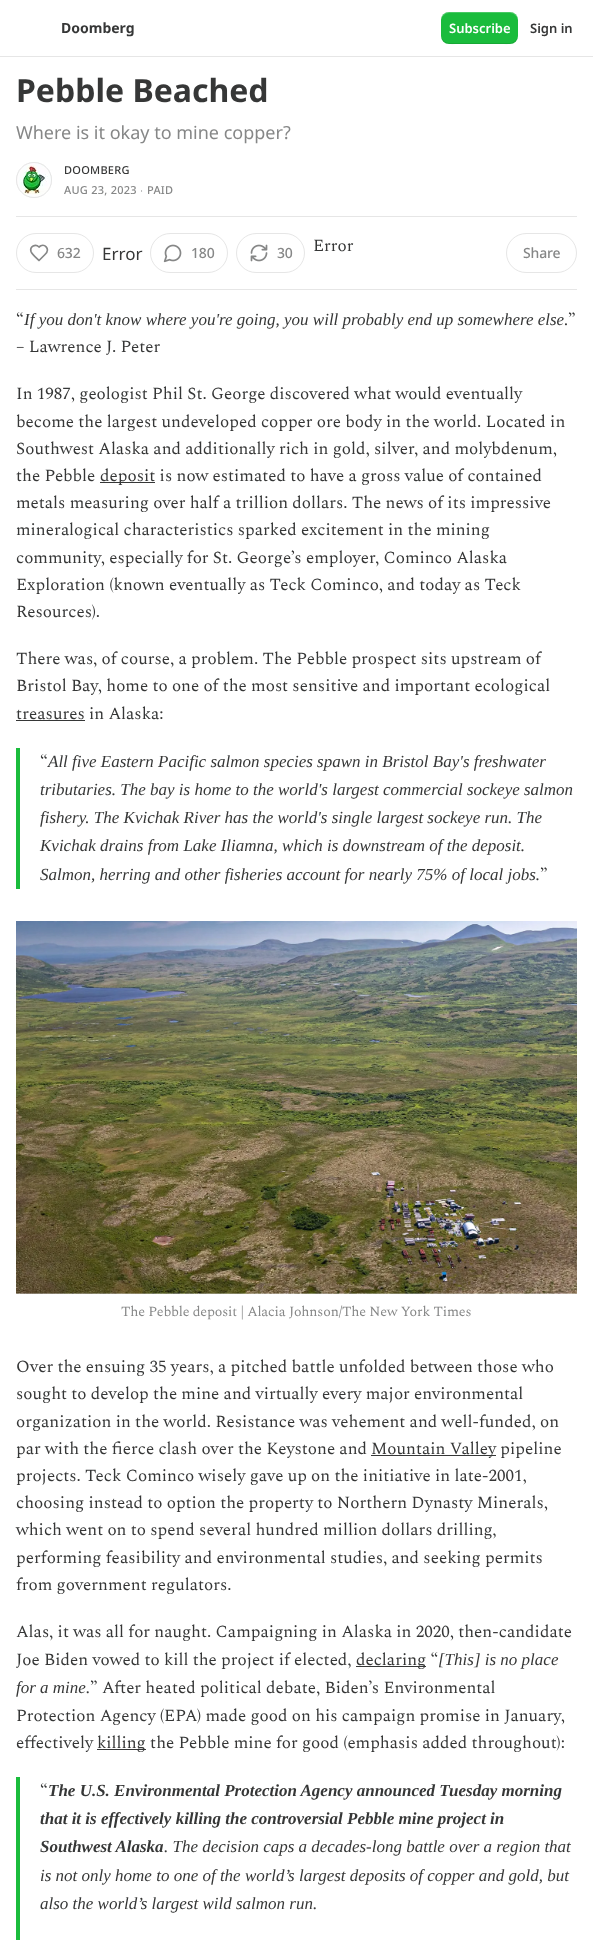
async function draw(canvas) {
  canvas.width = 593
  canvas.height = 1940
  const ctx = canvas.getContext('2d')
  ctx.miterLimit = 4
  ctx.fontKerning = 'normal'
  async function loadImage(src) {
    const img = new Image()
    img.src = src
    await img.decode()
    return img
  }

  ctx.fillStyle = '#fff'
  ctx.fillRect(0, 0, 593, 1940)
  ctx.fillStyle = '#e6e6e6'
  ctx.fillRect(0, 56, 593, 1)
  ctx.font = 'bold 14px Noto Sans'
  ctx.fillStyle = '#363737'
  ctx.fillText('Doomberg', 61, 33)
  ctx.fillStyle = '#1abc3c'
  ctx.beginPath()
  ctx.roundRect(441, 12, 77, 32, 8)
  ctx.fill()
  ctx.fillStyle = '#0000001a'
  ctx.beginPath()
  ctx.moveTo(441, 35)
  ctx.bezierCurveTo(441, 46, 451, 44, 459, 44)
  ctx.lineTo(500, 44)
  ctx.bezierCurveTo(508, 44, 518, 46, 518, 35)
  ctx.bezierCurveTo(518, 39, 514, 43, 510, 43)
  ctx.lineTo(449, 43)
  ctx.bezierCurveTo(445, 43, 441, 39, 441, 35)
  ctx.closePath()
  ctx.fill()
  ctx.fillStyle = '#ffffff33'
  ctx.beginPath()
  ctx.moveTo(449, 13)
  ctx.lineTo(510, 13)
  ctx.bezierCurveTo(514, 13, 518, 17, 518, 21)
  ctx.bezierCurveTo(518, 10, 508, 12, 500, 12)
  ctx.lineTo(459, 12)
  ctx.bezierCurveTo(451, 12, 441, 10, 441, 21)
  ctx.bezierCurveTo(441, 17, 445, 13, 449, 13)
  ctx.closePath()
  ctx.fill()
  ctx.font = '600 13px Noto Sans'
  ctx.fillStyle = '#fff'
  ctx.fillText('Subscribe', 449, 33)
  ctx.fillStyle = '#363737'
  ctx.fillText('Sign in', 530, 33)
  ctx.font = 'bold 32px Noto Sans'
  ctx.fillText('Pebble Beached', 16, 102)
  ctx.font = '18px Noto Sans'
  ctx.fillStyle = '#868787'
  ctx.fillText('Where is it okay to mine copper?', 16, 139)
  ctx.beginPath()
  ctx.arc(34, 180, 17.5, 0, 2 * Math.PI)
  ctx.strokeStyle = '#e6e6e6'
  ctx.stroke()
  ctx.drawImage(await loadImage('image0.png'), 16, 162, 36, 36)
  ctx.beginPath()
  ctx.arc(34, 180, 17.5, 0, 2 * Math.PI)
  ctx.stroke()
  ctx.letterSpacing = '0.25px'
  ctx.font = '500 11px Noto Sans'
  ctx.fillStyle = '#363737'
  ctx.fillText('DOOMBERG', 64, 174)
  ctx.fillStyle = '#868787'
  ctx.fillText('AUG 23, 2023', 64, 194)
  ctx.font = '11px Liberation Sans'
  ctx.fillText('∙', 140, 194)
  ctx.font = '500 11px Noto Sans'
  ctx.fillText('PAID', 147, 194)
  ctx.fillStyle = '#e6e6e6'
  ctx.fillRect(16, 216, 561, 1)
  ctx.fillRect(16, 289, 561, 1)
  ctx.letterSpacing = '0px'
  ctx.font = '17px Spectral'
  ctx.fillStyle = '#363737'
  ctx.fillText('Error', 313, 251)
  ctx.beginPath()
  ctx.roundRect(16.5, 233.5, 77, 39, 19.5)
  ctx.stroke()
  ctx.beginPath()
  ctx.moveTo(45, 254.5)
  ctx.bezierCurveTo(51, 248.5, 44, 242.5, 39, 247)
  ctx.bezierCurveTo(35.5, 243.5, 29.5, 246.5, 31, 251.5)
  ctx.bezierCurveTo(32, 254.5, 37, 258.5, 39, 260.5)
  ctx.closePath()
  ctx.strokeStyle = '#868787'
  ctx.lineWidth = 1.7
  ctx.lineCap = 'round'
  ctx.lineJoin = 'round'
  ctx.stroke()
  ctx.letterSpacing = '-0.15px'
  ctx.font = '500 14px Noto Sans'
  ctx.fillStyle = '#868787'
  ctx.fillText('632', 57, 258)
  ctx.letterSpacing = '0px'
  ctx.font = '17px Noto Sans'
  ctx.fillStyle = '#363737'
  ctx.fillText('Error', 102, 260)
  ctx.beginPath()
  ctx.roundRect(150.5, 233.5, 77, 39, 19.5)
  ctx.strokeStyle = '#e6e6e6'
  ctx.lineWidth = 1
  ctx.lineJoin = 'miter'
  ctx.stroke()
  ctx.drawImage(await loadImage('image1.png'), 163, 244, 19, 19)
  ctx.letterSpacing = '-0.15px'
  ctx.font = '500 14px Noto Sans'
  ctx.fillStyle = '#868787'
  ctx.fillText('180', 191, 258)
  ctx.beginPath()
  ctx.roundRect(236.5, 233.5, 68, 39, 19.5)
  ctx.stroke()
  ctx.drawImage(await loadImage('image2.png'), 250, 244, 18, 18)
  ctx.fillText('30', 277, 258)
  ctx.beginPath()
  ctx.roundRect(506.5, 233.5, 70, 39, 19.5)
  ctx.stroke()
  ctx.fillText('Share', 523, 258)
  ctx.letterSpacing = '0px'
  ctx.font = '17px Spectral'
  ctx.fillStyle = '#363737'
  ctx.fillText('“', 16, 325)
  ctx.font = 'italic 17px Liberation Serif'
  ctx.fillText('If you don\'t know where you\'re going, you will probably end up somewhere else.', 24, 325)
  ctx.font = '17px Spectral'
  ctx.fillText('”', 568, 325)
  ctx.fillText('– Lawrence J. Peter', 16, 352)
  ctx.fillText('In 1987, geologist Phil St. George discovered what would eventually', 16, 399)
  ctx.fillText('become the largest undeveloped copper ore body in the world. Located in', 16, 427)
  ctx.fillText('Southwest Alaska and additionally rich in gold, silver, and molybdenum,', 16, 454)
  ctx.fillText('the Pebble', 16, 481)
  ctx.fillRect(100, 482, 55, 1)
  ctx.fillText('deposit is now estimated to have a gross value of contained', 100, 481)
  ctx.fillText('metals measuring over half a trillion dollars. The news of its impressive', 16, 508)
  ctx.fillText('mineralogical characteristics sparked excitement in the mining', 16, 535)
  ctx.fillText('community, especially for St. George’s employer, Cominco Alaska', 16, 563)
  ctx.fillText('Exploration (known eventually as Teck Cominco, and today as Teck', 16, 590)
  ctx.fillText('Resources).', 16, 617)
  ctx.fillText('There was, of course, a problem. The Pebble prospect sits upstream of', 16, 664)
  ctx.fillText('Bristol Bay, home to one of the most sensitive and important ecological', 16, 691)
  ctx.fillText('treasures in Alaska:', 16, 719)
  ctx.fillRect(16, 720, 69, 1)
  ctx.fillStyle = '#1abc3c'
  ctx.fillRect(16, 748, 4, 141)
  ctx.fillStyle = '#363737'
  ctx.fillText('“', 40, 767)
  ctx.font = 'italic 17px Liberation Serif'
  ctx.fillText('All five Eastern Pacific salmon species spawn in Bristol Bay\'s freshwater', 48, 767)
  ctx.fillText('tributaries. The bay is home to the world\'s largest commercial sockeye salmon', 40, 795)
  ctx.fillText('fishery. The Kvichak River has the world\'s single largest sockeye run. The', 40, 823)
  ctx.fillText('Kvichak drains from Lake Iliamna, which is downstream of the deposit.', 40, 851)
  ctx.fillText('Salmon, herring and other fisheries account for nearly 75% of local jobs.', 40, 880)
  ctx.font = '17px Spectral'
  ctx.fillText('”', 540, 880)
  ctx.drawImage(await loadImage('image3.png'), 16, 921, 561, 373)
  ctx.letterSpacing = '-0.15px'
  ctx.font = '14px Spectral'
  ctx.fillStyle = '#868787'
  ctx.fillText('The Pebble deposit | Alacia Johnson/The New York Times', 121, 1316)
  ctx.letterSpacing = '0px'
  ctx.font = '17px Spectral'
  ctx.fillStyle = '#363737'
  ctx.fillText('Over the ensuing 35 years, a pitched battle unfolded between those who', 16, 1372)
  ctx.fillText('sought to develop the mine and virtually every major environmental', 16, 1399)
  ctx.fillText('organization in the world. Resistance was vehement and well-funded, on', 16, 1427)
  ctx.fillText('par with the fierce clash over the Keystone and', 16, 1454)
  ctx.fillRect(371, 1455, 125, 1)
  ctx.fillText('Mountain Valley pipeline', 371, 1454)
  ctx.fillText('projects. Teck Cominco wisely gave up on the initiative in late-2001,', 16, 1481)
  ctx.fillText('choosing instead to option the property to Northern Dynasty Minerals,', 16, 1508)
  ctx.fillText('which went on to spend several hundred million dollars drilling,', 16, 1535)
  ctx.fillText('performing feasibility and environmental studies, and seeking permits', 16, 1563)
  ctx.fillText('from government regulators.', 16, 1590)
  ctx.fillText('Alas, it was all for naught. Campaigning in Alaska in 2020, then-candidate', 16, 1637)
  ctx.fillText('Joe Biden vowed to kill the project if elected,', 16, 1665)
  ctx.fillRect(356, 1666, 70, 1)
  ctx.fillText('declaring “', 356, 1665)
  ctx.font = 'italic 17px Liberation Serif'
  ctx.fillText('[This] is no place', 438, 1665)
  ctx.fillText('for a mine.', 16, 1693)
  ctx.font = '17px Spectral'
  ctx.fillText('” After heated political debate, Biden’s Environmental', 90, 1693)
  ctx.fillText('Protection Agency (EPA) made good on his campaign promise in January,', 16, 1721)
  ctx.fillText('effectively', 16, 1748)
  ctx.fillRect(97, 1749, 49, 1)
  ctx.fillText('killing the Pebble mine for good (emphasis added throughout):', 97, 1748)
  ctx.fillStyle = '#1abc3c'
  ctx.fillRect(16, 1777, 4, 163)
  ctx.fillStyle = '#363737'
  ctx.fillText('“', 40, 1796)
  ctx.font = 'italic bold 17px Liberation Serif'
  ctx.fillText('The U.S. Environmental Protection Agency announced Tuesday morning', 48, 1796)
  ctx.fillText('that it is effectively killing the controversial Pebble mine project in', 40, 1824)
  ctx.fillText('Southwest Alaska', 40, 1852)
  ctx.font = 'italic 17px Liberation Serif'
  ctx.fillText('. The decision caps a decades-long battle over a region that', 164, 1852)
  ctx.fillText('is not only home to one of the world’s largest deposits of copper and gold, but', 40, 1881)
  ctx.fillText('also the world’s largest wild salmon run.', 40, 1909)
}

draw(document.querySelector('canvas'))
